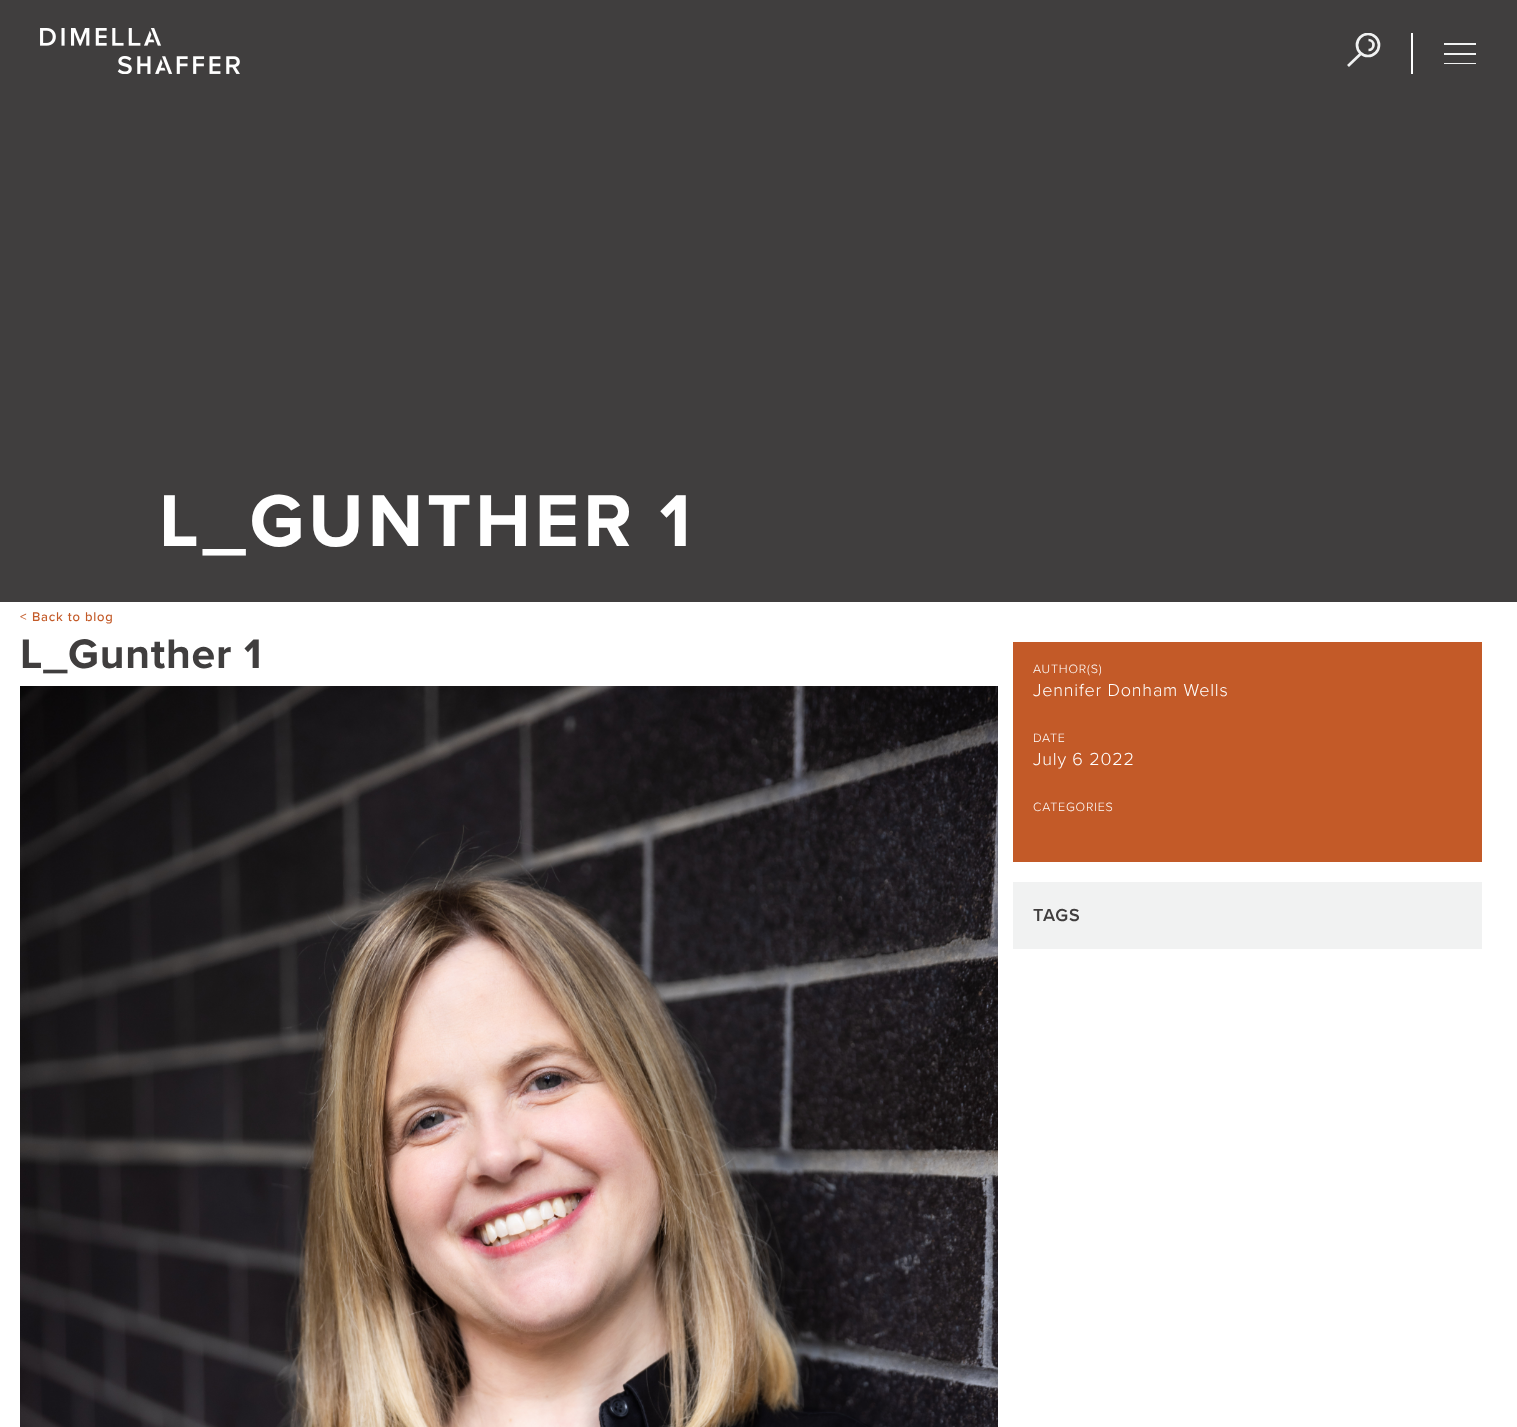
async function draw(canvas) {
  canvas.width = 1517
  canvas.height = 1427
  const ctx = canvas.getContext('2d')
  ctx.miterLimit = 4
  ctx.fontKerning = 'normal'
  async function loadImage(src) {
    const img = new Image()
    img.src = src
    await img.decode()
    return img
  }

  ctx.fillStyle = '#fff'
  ctx.fillRect(0, 0, 1517, 1427)
  ctx.fillStyle = '#403e3e'
  ctx.fillRect(0, 0, 1517, 602)
  ctx.drawImage(await loadImage('image0.png'), 40, 28, 200, 46)
  ctx.fillStyle = '#fff'
  ctx.fillRect(1411, 33, 2, 41)
  ctx.save()
  ctx.beginPath()
  ctx.rect(1347, 33, 34, 34)
  ctx.clip()
  ctx.beginPath()
  ctx.arc(1368, 45, 11, 0, 2 * Math.PI)
  ctx.strokeStyle = '#f1f2f2'
  ctx.lineWidth = 2.7
  ctx.stroke()
  ctx.restore()
  ctx.beginPath()
  ctx.moveTo(1360.5, 54)
  ctx.lineTo(1348, 66)
  ctx.strokeStyle = '#f1f2f2'
  ctx.lineWidth = 2.7
  ctx.stroke()
  ctx.save()
  ctx.beginPath()
  ctx.moveTo(1368.5, 35)
  ctx.lineTo(1383.5, 35)
  ctx.lineTo(1383.5, 54)
  ctx.lineTo(1368.5, 54)
  ctx.closePath()
  ctx.clip()
  ctx.beginPath()
  ctx.arc(1368.5, 45, 5, 0, 2 * Math.PI)
  ctx.stroke()
  ctx.restore()
  ctx.fillStyle = '#f1f2f2'
  ctx.fillRect(1444, 53, 32, 2)
  ctx.fillRect(1444, 43, 32, 2)
  ctx.fillRect(1444, 63, 32, 1)
  ctx.letterSpacing = '4px'
  ctx.font = 'bold 76px Proxima Nova'
  ctx.fillStyle = '#fff'
  ctx.fillText('L_GUNTHER 1', 159, 546)
  ctx.letterSpacing = '0.8px'
  ctx.font = '500 13px Proxima Nova'
  ctx.fillStyle = '#c35a28'
  ctx.fillText('<', 20, 621)
  ctx.fillText('Back to blog', 32, 621)
  ctx.font = 'bold 42.75px Proxima Nova'
  ctx.fillStyle = '#403e3e'
  ctx.fillText('L_Gunther 1', 20, 668)
  ctx.drawImage(await loadImage('image1.png'), 20, 686, 978, 741)
  ctx.fillStyle = '#c35a28'
  ctx.fillRect(1013, 642, 469, 220)
  ctx.font = '300 12.5px Proxima Nova'
  ctx.fillStyle = '#fff'
  ctx.fillText('AUTHOR(S)', 1033, 673)
  ctx.font = '300 18px Proxima Nova'
  ctx.fillText('Jennifer Donham Wells', 1033, 696)
  ctx.font = '300 12.5px Proxima Nova'
  ctx.fillText('DATE', 1033, 742)
  ctx.font = '300 18px Proxima Nova'
  ctx.fillText('July 6 2022', 1033, 765)
  ctx.font = '300 12.5px Proxima Nova'
  ctx.fillText('CATEGORIES', 1033, 811)
  ctx.fillStyle = '#f1f2f2'
  ctx.fillRect(1013, 882, 469, 67)
  ctx.font = '600 18px Proxima Nova'
  ctx.fillStyle = '#403e3e'
  ctx.fillText('TAGS', 1033, 921)
}

draw(document.querySelector('canvas'))
